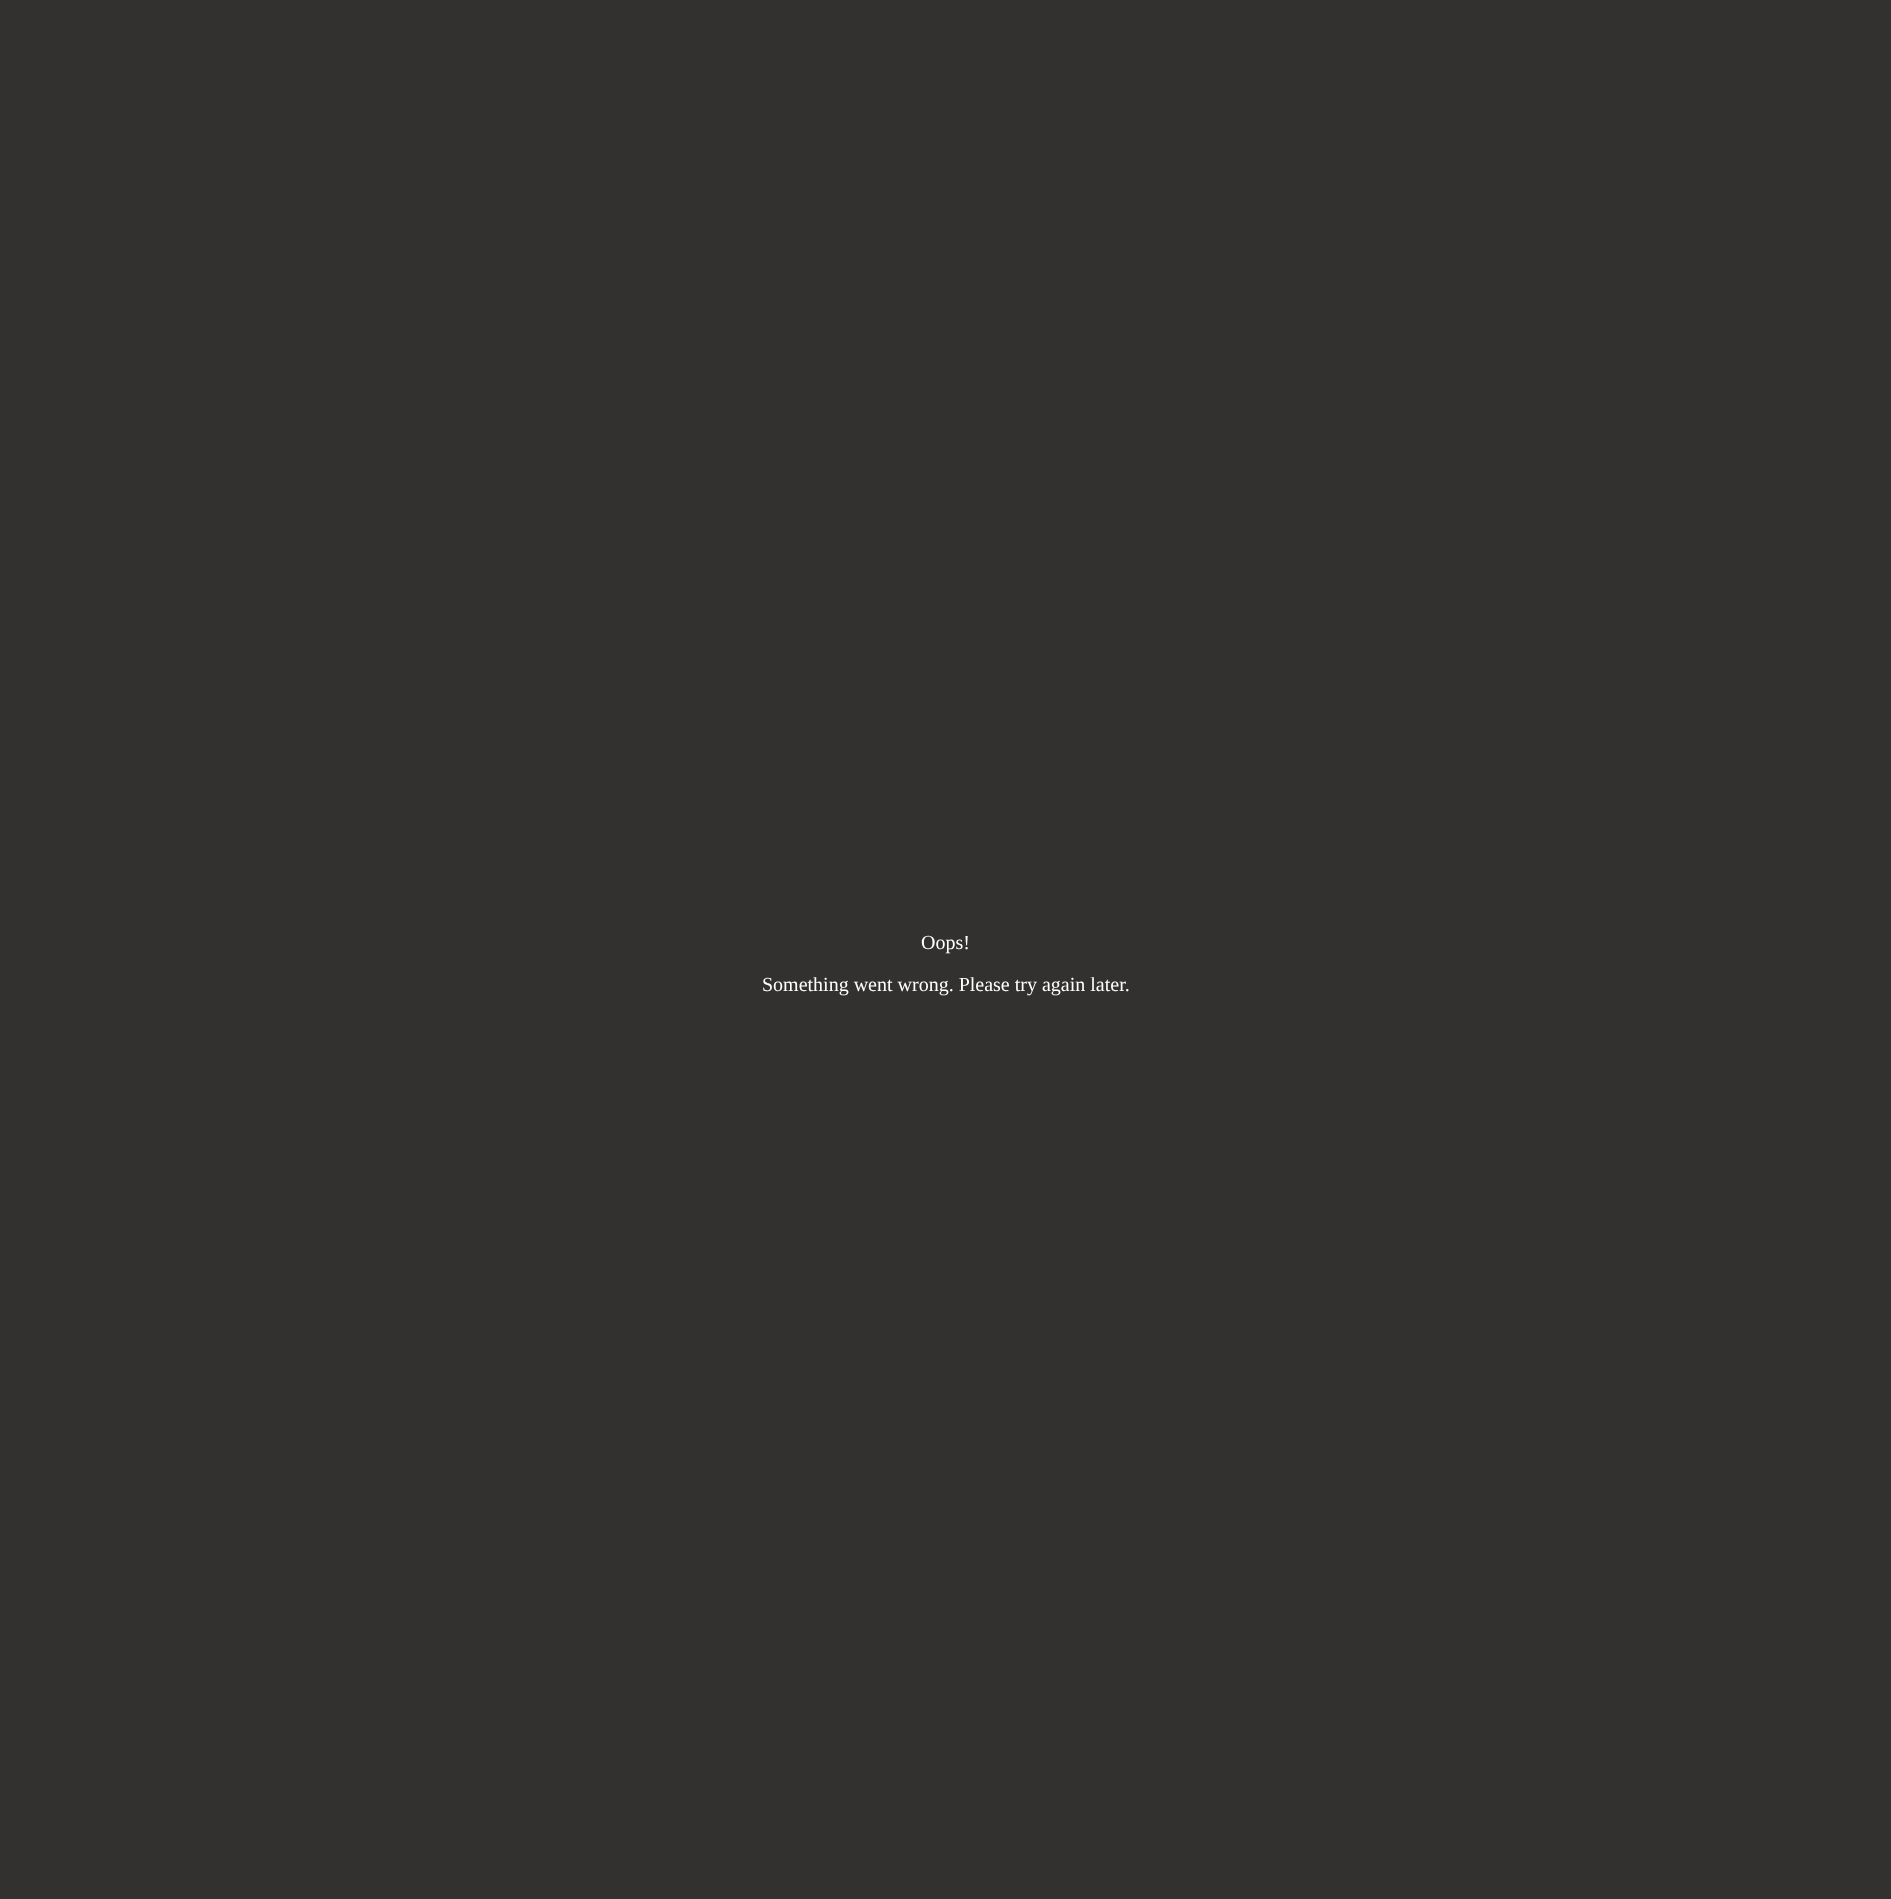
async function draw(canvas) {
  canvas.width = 1891
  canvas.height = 1899
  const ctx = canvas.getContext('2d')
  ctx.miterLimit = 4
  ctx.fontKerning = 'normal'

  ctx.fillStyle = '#32312f'
  ctx.fillRect(0, 0, 1891, 1899)
  ctx.font = '20px Liberation Serif'
  ctx.fillStyle = '#fff'
  ctx.fillText('Oops!', 921, 949)
  ctx.fillText('Something went wrong. Please try again later.', 762, 991)
}

draw(document.querySelector('canvas'))
